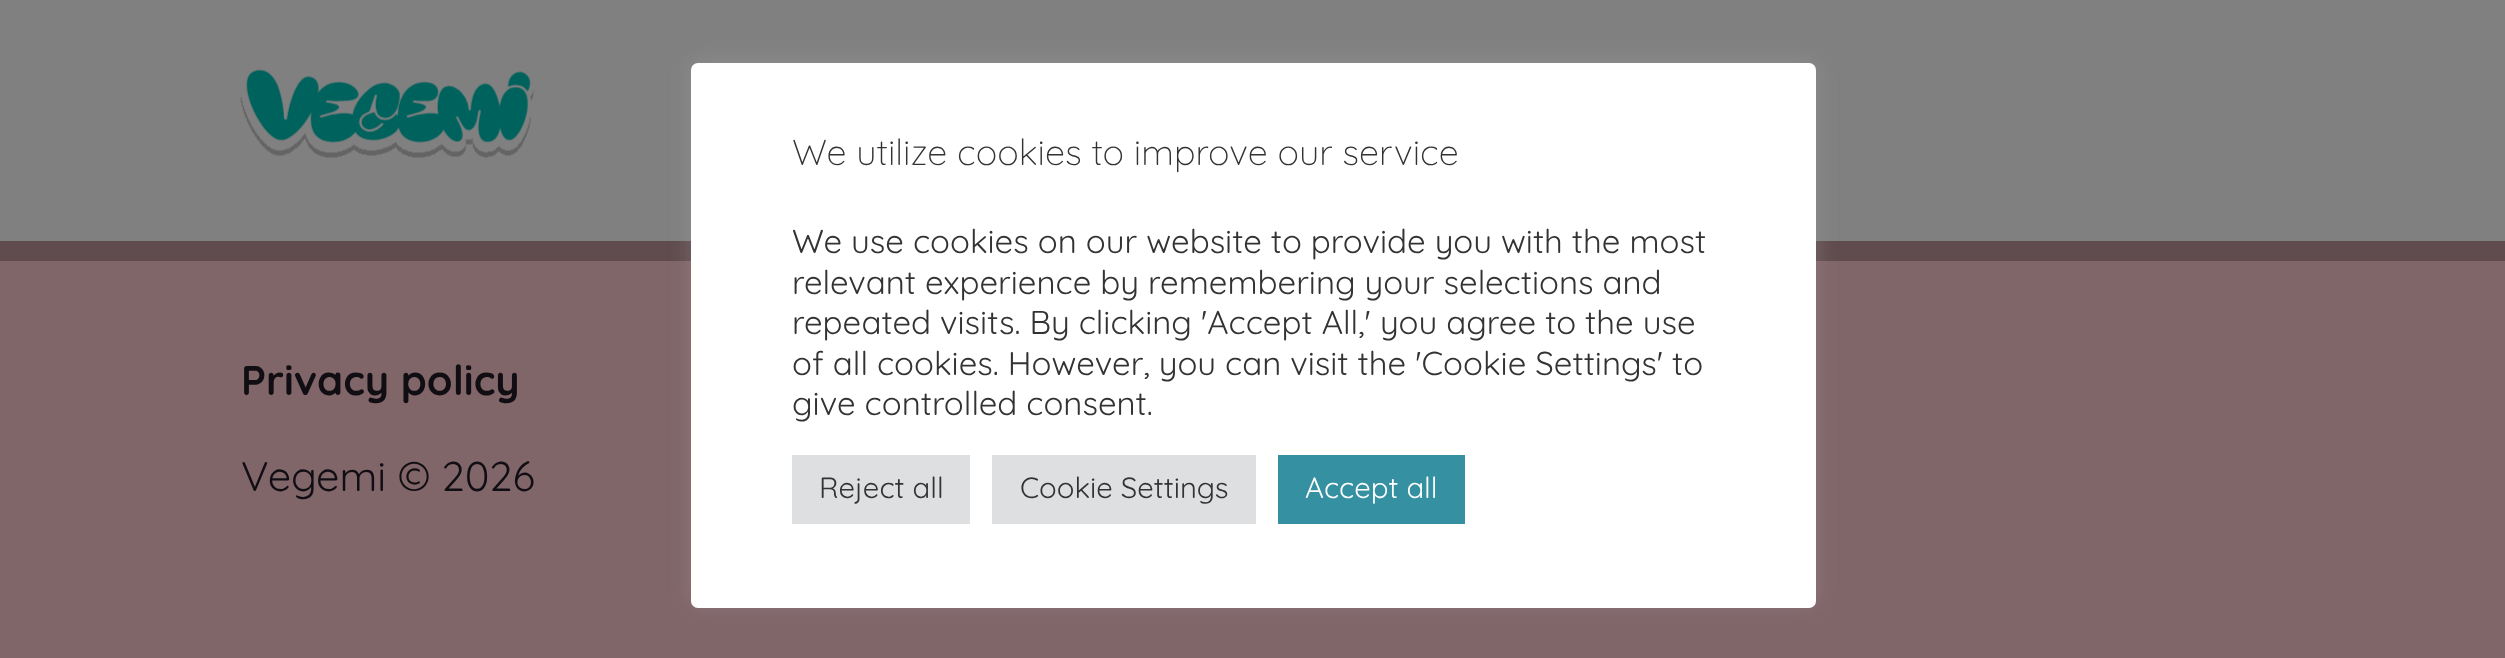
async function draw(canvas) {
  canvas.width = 2505
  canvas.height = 658
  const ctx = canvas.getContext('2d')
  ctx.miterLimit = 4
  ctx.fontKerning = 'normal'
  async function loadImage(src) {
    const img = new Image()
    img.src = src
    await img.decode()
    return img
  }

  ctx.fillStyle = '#806569'
  ctx.fillRect(0, 0, 2505, 658)
  ctx.fillStyle = '#604c4f'
  ctx.beginPath()
  ctx.moveTo(0, 241)
  ctx.lineTo(0, 261)
  ctx.lineTo(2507, 261)
  ctx.lineTo(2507, 20)
  ctx.lineTo(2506, 20)
  ctx.lineTo(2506, 241)
  ctx.closePath()
  ctx.fill()
  ctx.fillStyle = '#808080'
  ctx.fillRect(0, 0, 2505, 241)
  ctx.drawImage(await loadImage('image0.png'), 240, 69, 294, 89)
  ctx.font = 'bold 41.5px Quicksand'
  ctx.fillStyle = '#100e13'
  ctx.fillText('Privacy policy', 241, 395)
  ctx.font = '41.5px Quicksand'
  ctx.fillText('Vegemi © 2026', 241, 491)
  ctx.fillStyle = '#acabab4d'
  ctx.filter = 'blur(11px)'
  ctx.beginPath()
  ctx.roundRect(691, 61, 1125, 544, 7)
  ctx.fill()
  ctx.filter = 'none'
  ctx.fillStyle = '#fff'
  ctx.beginPath()
  ctx.roundRect(691, 63, 1125, 545, 7)
  ctx.fill()
  ctx.font = '300 36px Quicksand'
  ctx.fillStyle = '#333'
  ctx.fillText('We utilize cookies to improve our service', 792, 165)
  ctx.font = '33px Quicksand'
  ctx.fillText('We use cookies on our website to provide you with the most', 792, 253)
  ctx.fillText('relevant experience by remembering your selections and', 792, 294)
  ctx.fillText('repeated visits. By clicking \'Accept All,\' you agree to the use', 792, 334)
  ctx.fillText('of all cookies. However, you can visit the \'Cookie Settings\' to', 792, 375)
  ctx.fillText('give controlled consent.', 792, 415)
  ctx.fillStyle = '#dedfe0'
  ctx.fillRect(792, 455, 178, 69)
  ctx.font = '29.25px Quicksand'
  ctx.fillStyle = '#333'
  ctx.fillText('Reject all', 819, 498)
  ctx.fillStyle = '#dedfe0'
  ctx.fillRect(992, 455, 264, 69)
  ctx.fillStyle = '#333'
  ctx.fillText('Cookie Settings', 1020, 498)
  ctx.fillStyle = '#3591a1'
  ctx.fillRect(1278, 455, 187, 69)
  ctx.fillStyle = '#fff'
  ctx.fillText('Accept all', 1305, 498)
}

draw(document.querySelector('canvas'))
